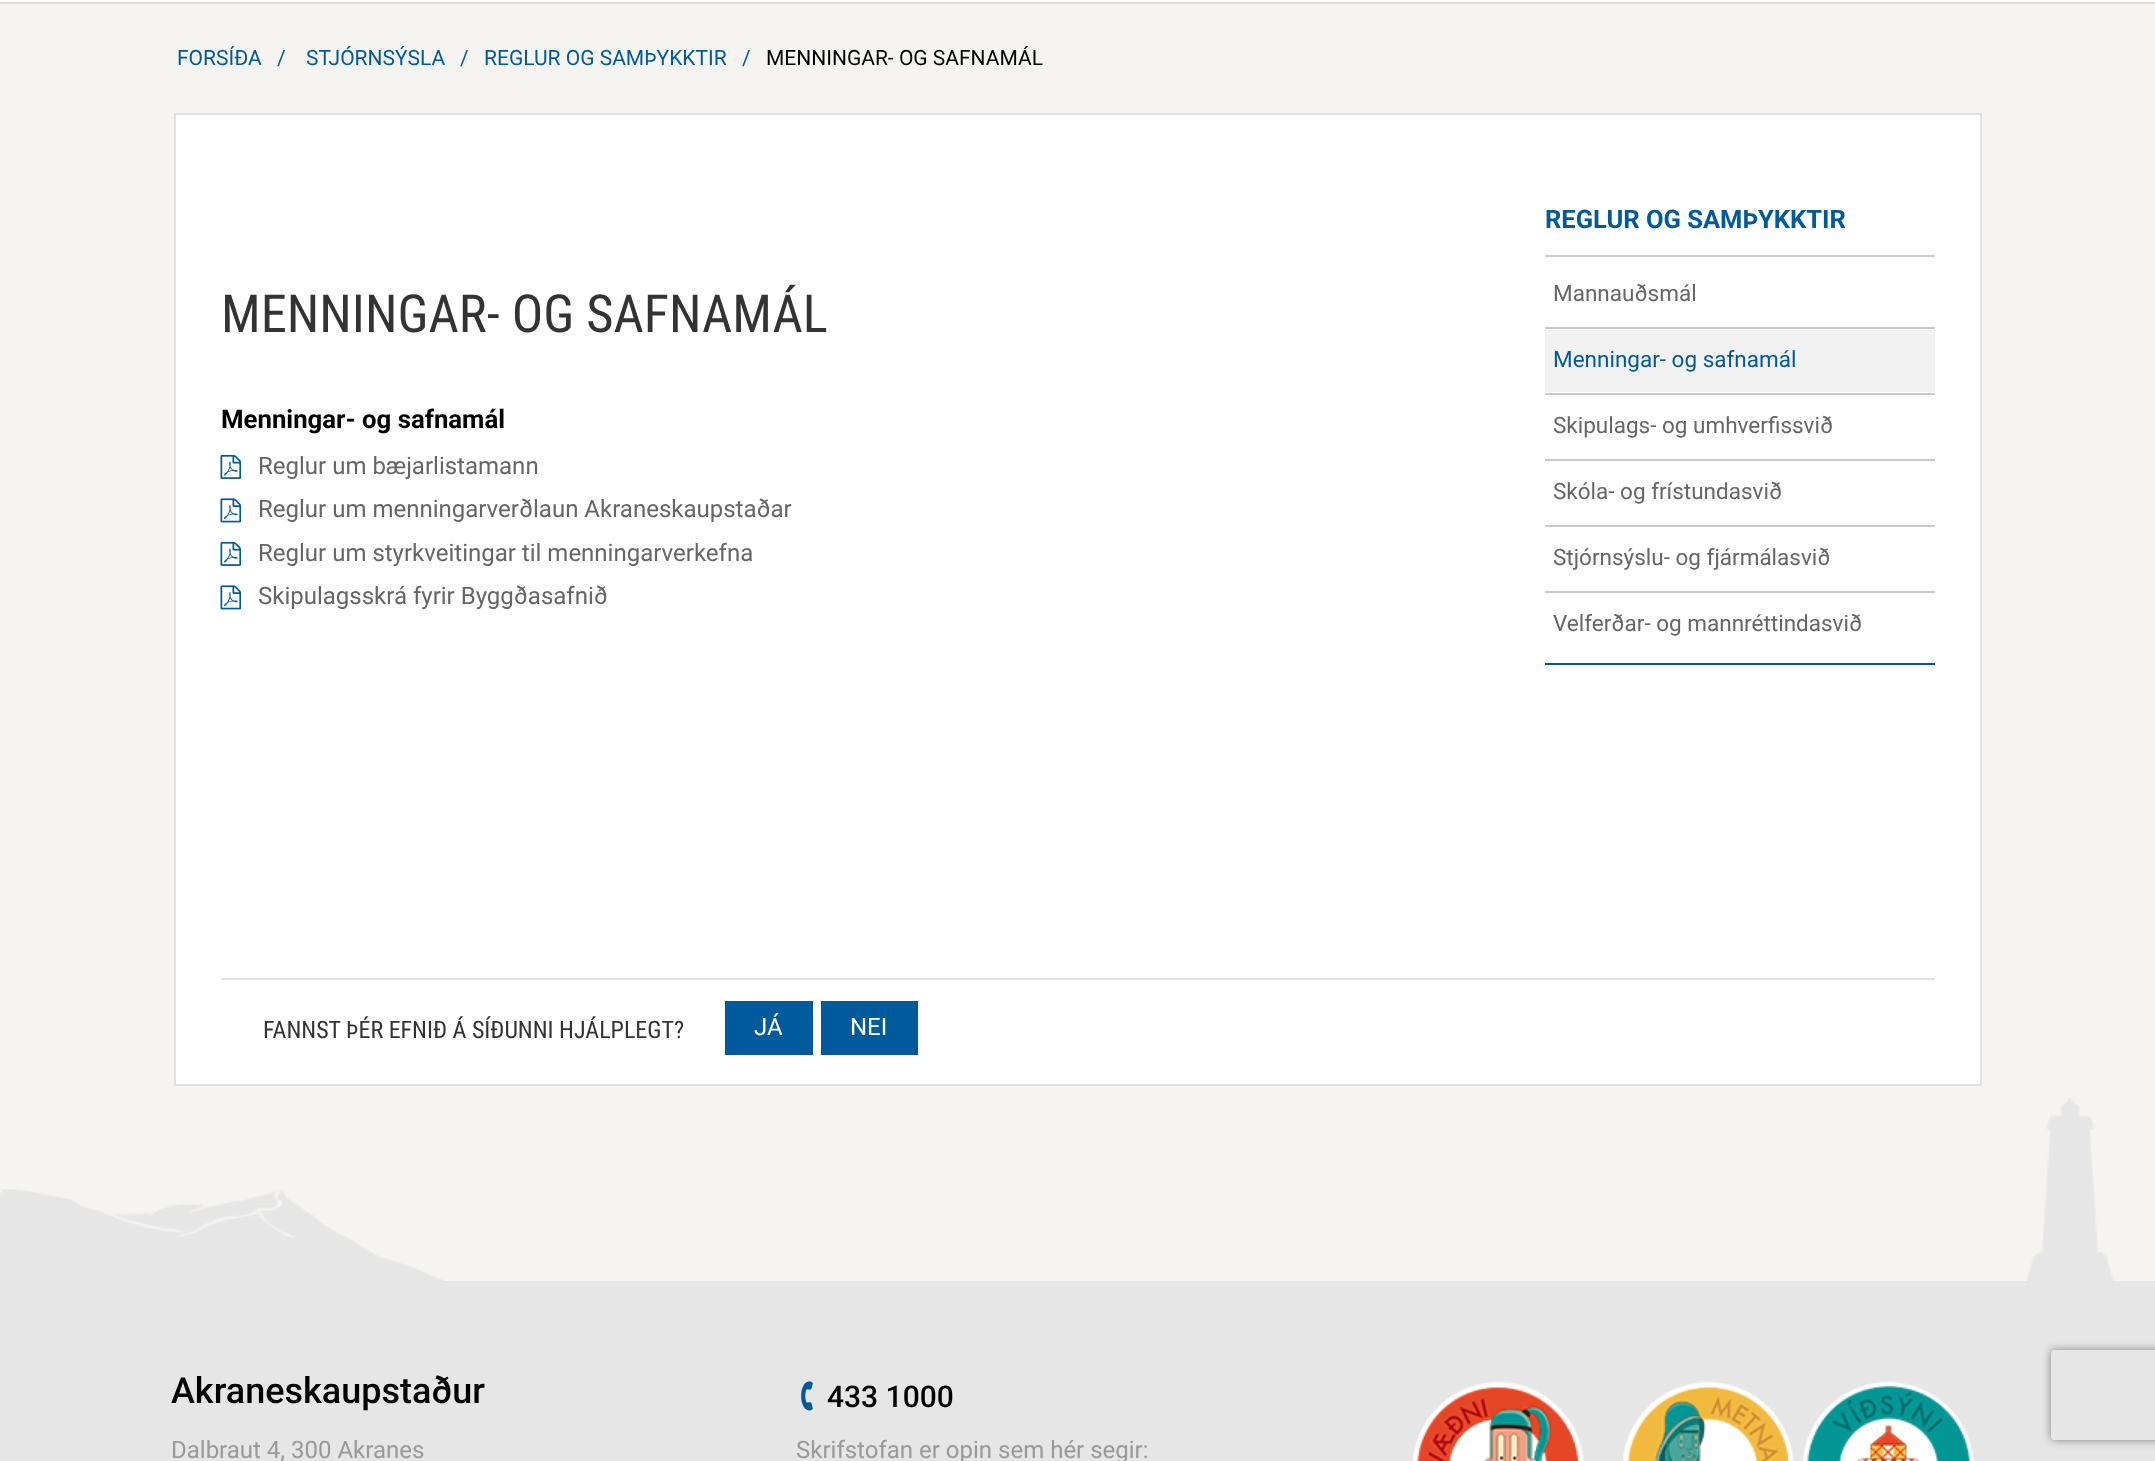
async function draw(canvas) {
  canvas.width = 2155
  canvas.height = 1461
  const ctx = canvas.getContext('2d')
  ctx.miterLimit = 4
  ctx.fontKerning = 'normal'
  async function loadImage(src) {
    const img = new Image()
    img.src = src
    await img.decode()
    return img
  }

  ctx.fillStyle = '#f5f4f0'
  ctx.fillRect(0, 0, 2155, 1461)
  ctx.fillStyle = '#fff'
  ctx.fillRect(0, 0, 2155, 2)
  ctx.fillStyle = '#dcdbd8'
  ctx.fillRect(0, 2, 2155, 2)
  ctx.font = '21px Roboto'
  ctx.fillStyle = '#005a9c'
  ctx.fillText('FORSÍÐA', 177, 65)
  ctx.fillText('/', 277, 65)
  ctx.fillText('STJÓRNSÝSLA', 306, 65)
  ctx.fillText('/', 460, 65)
  ctx.fillText('REGLUR OG SAMÞYKKTIR', 484, 65)
  ctx.fillText('/', 742, 65)
  ctx.fillStyle = '#000'
  ctx.fillText('MENNINGAR- OG SAFNAMÁL', 766, 65)
  ctx.fillStyle = '#fff'
  ctx.beginPath()
  ctx.rect(175, 114, 1806, 971)
  ctx.fill()
  ctx.strokeStyle = '#e1e1e1'
  ctx.lineWidth = 2
  ctx.stroke()
  ctx.font = '52.5px Roboto Condensed'
  ctx.fillStyle = '#333'
  ctx.fillText('MENNINGAR- OG SAFNAMÁL', 221, 332)
  ctx.font = 'bold 25.75px Roboto'
  ctx.fillStyle = '#000'
  ctx.fillText('Menningar- og safnamál', 221, 428)
  ctx.drawImage(await loadImage('image0.png'), 220, 454, 22, 25)
  ctx.font = '24px Roboto'
  ctx.fillStyle = '#666'
  ctx.fillText('Reglur um bæjarlistamann', 258, 474)
  ctx.drawImage(await loadImage('image1.png'), 220, 498, 22, 25)
  ctx.fillText('Reglur um menningarverðlaun Akraneskaupstaðar', 258, 517)
  ctx.drawImage(await loadImage('image0.png'), 220, 541, 22, 25)
  ctx.fillText('Reglur um styrkveitingar til menningarverkefna', 258, 561)
  ctx.drawImage(await loadImage('image1.png'), 220, 585, 22, 25)
  ctx.fillText('Skipulagsskrá fyrir Byggðasafnið', 258, 604)
  ctx.font = 'bold 25.5px Roboto'
  ctx.fillStyle = '#005a9c'
  ctx.fillText('REGLUR OG SAMÞYKKTIR', 1545, 228)
  ctx.fillStyle = '#ccc'
  ctx.fillRect(1545, 255, 390, 2)
  ctx.fillStyle = '#005a9c'
  ctx.fillRect(1545, 663, 390, 2)
  ctx.fillStyle = '#cacaca'
  ctx.fillRect(1545, 327, 390, 2)
  ctx.font = '22.5px Roboto'
  ctx.fillStyle = '#666'
  ctx.fillText('Mannauðsmál', 1553, 301)
  ctx.fillStyle = '#cacaca'
  ctx.fillRect(1545, 393, 390, 2)
  ctx.fillStyle = '#f2f2f2'
  ctx.fillRect(1545, 330, 390, 62)
  ctx.fillStyle = '#005a9c'
  ctx.fillText('Menningar- og safnamál', 1553, 367)
  ctx.fillStyle = '#cacaca'
  ctx.fillRect(1545, 459, 390, 2)
  ctx.fillStyle = '#666'
  ctx.fillText('Skipulags- og umhverfissvið', 1553, 433)
  ctx.fillStyle = '#cacaca'
  ctx.fillRect(1545, 525, 390, 2)
  ctx.fillStyle = '#666'
  ctx.fillText('Skóla- og frístundasvið', 1553, 499)
  ctx.fillStyle = '#cacaca'
  ctx.fillRect(1545, 591, 390, 2)
  ctx.fillStyle = '#666'
  ctx.fillText('Stjórnsýslu- og fjármálasvið', 1553, 565)
  ctx.fillText('Velferðar- og mannréttindasvið', 1553, 631)
  ctx.fillStyle = '#e1e1e1'
  ctx.fillRect(221, 978, 1714, 2)
  ctx.font = '24px Roboto Condensed'
  ctx.fillStyle = '#333'
  ctx.fillText('FANNST ÞÉR EFNIÐ Á SÍÐUNNI HJÁLPLEGT?', 263, 1038)
  ctx.fillStyle = '#005a9c'
  ctx.fillRect(725, 1001, 88, 54)
  ctx.font = '24px Roboto'
  ctx.fillStyle = '#fff'
  ctx.fillText('JÁ', 754, 1035)
  ctx.fillStyle = '#005a9c'
  ctx.fillRect(821, 1001, 97, 54)
  ctx.fillStyle = '#fff'
  ctx.fillText('NEI', 850, 1035)
  ctx.fillStyle = '#e6e6e6'
  ctx.fillRect(0, 1281, 2155, 180)
  ctx.drawImage(await loadImage('image2.png'), 0, 1189, 445, 92)
  ctx.drawImage(await loadImage('image3.png'), 2026, 1098, 88, 183)
  ctx.font = '500 36px Roboto'
  ctx.fillStyle = '#000'
  ctx.fillText('Akraneskaupstaður', 171, 1403)
  ctx.font = '24px Roboto'
  ctx.fillStyle = '#999'
  ctx.fillText('Dalbraut 4, 300 Akranes', 171, 1458)
  ctx.drawImage(await loadImage('image4.png'), 801, 1381, 12, 30)
  ctx.font = '500 30px Roboto'
  ctx.fillStyle = '#000'
  ctx.fillText('433 1000', 827, 1407)
  ctx.font = '24px Roboto'
  ctx.fillStyle = '#999'
  ctx.fillText('Skrifstofan er opin sem hér segir:', 796, 1458)
  ctx.drawImage(await loadImage('image5.png'), 1413, 1381, 171, 80)
  ctx.drawImage(await loadImage('image6.png'), 1623, 1381, 171, 80)
  ctx.drawImage(await loadImage('image7.png'), 1803, 1381, 171, 80)
  ctx.save()
  ctx.beginPath()
  ctx.moveTo(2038, 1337)
  ctx.lineTo(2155, 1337)
  ctx.lineTo(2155, 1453)
  ctx.lineTo(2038, 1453)
  ctx.closePath()
  ctx.moveTo(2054, 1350)
  ctx.lineTo(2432, 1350)
  ctx.bezierCurveTo(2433.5, 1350, 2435, 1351.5, 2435, 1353)
  ctx.lineTo(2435, 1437)
  ctx.bezierCurveTo(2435, 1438.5, 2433.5, 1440, 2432, 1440)
  ctx.lineTo(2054, 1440)
  ctx.bezierCurveTo(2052.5, 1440, 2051, 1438.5, 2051, 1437)
  ctx.lineTo(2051, 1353)
  ctx.bezierCurveTo(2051, 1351.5, 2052.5, 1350, 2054, 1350)
  ctx.closePath()
  ctx.clip('evenodd')
  ctx.fillStyle = '#808080'
  ctx.filter = 'blur(4px)'
  ctx.beginPath()
  ctx.roundRect(2051, 1350, 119, 90, 3)
  ctx.fill()
  ctx.filter = 'none'
  ctx.restore()
}

draw(document.querySelector('canvas'))
